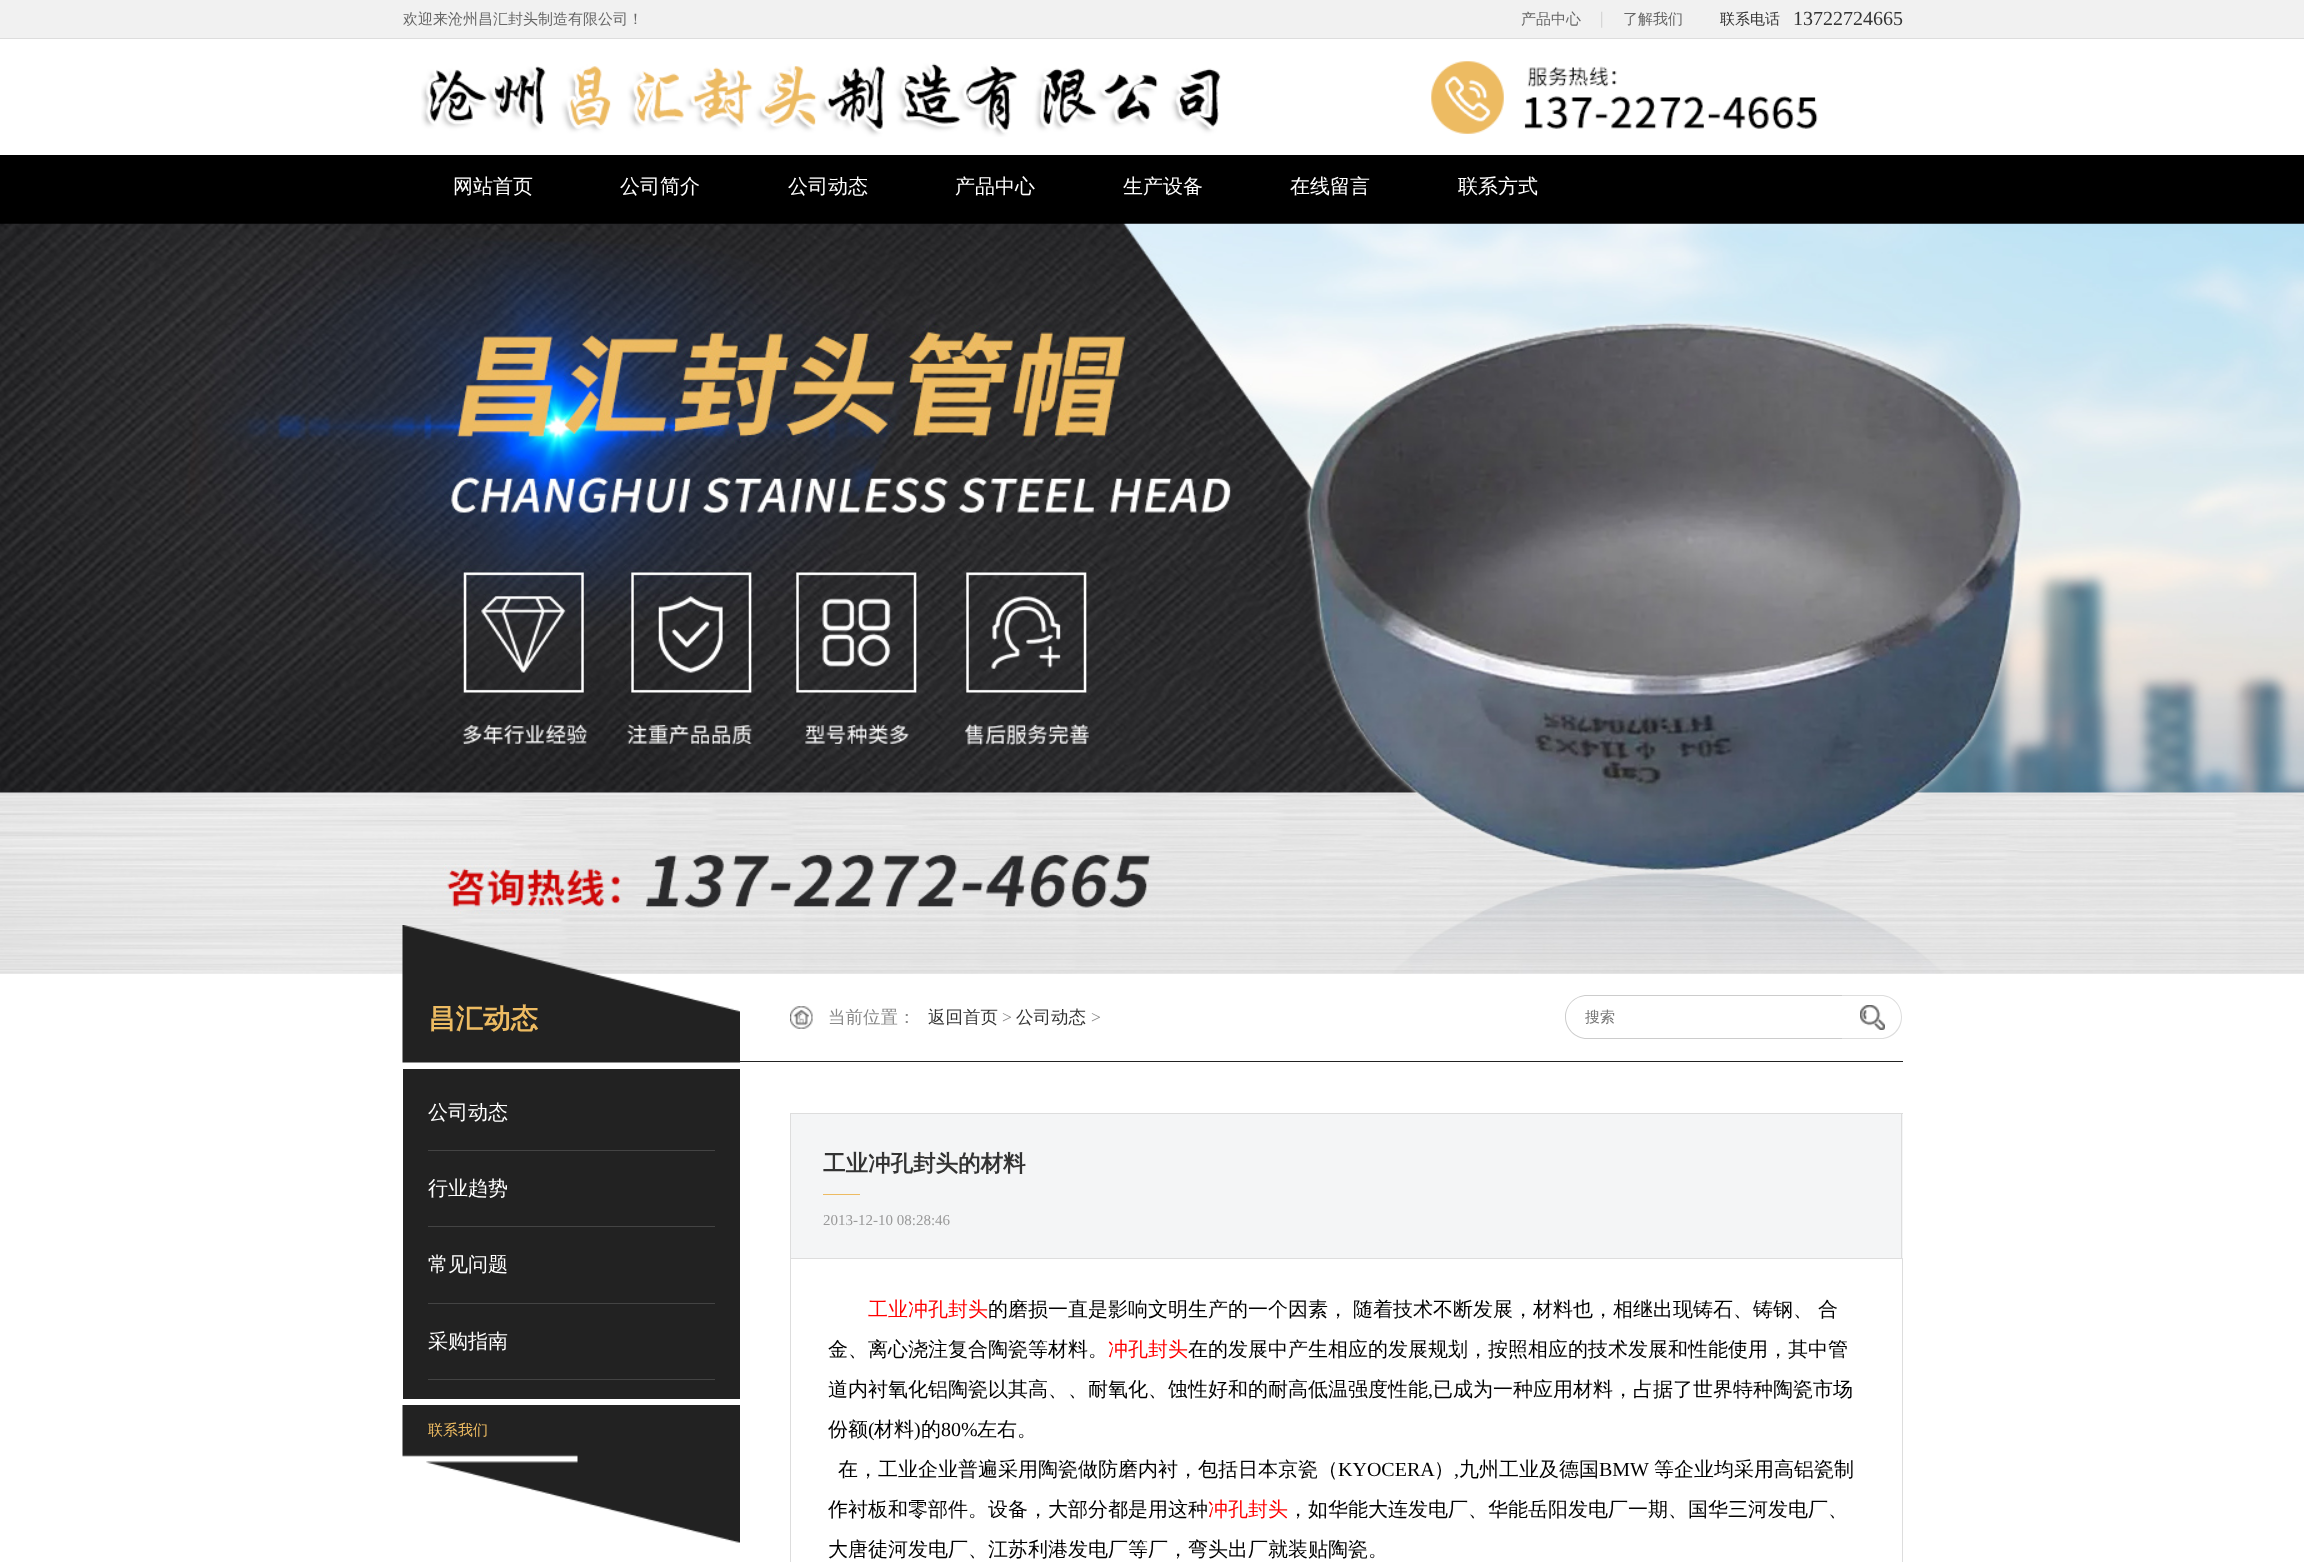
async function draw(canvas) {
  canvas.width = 2304
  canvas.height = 1562
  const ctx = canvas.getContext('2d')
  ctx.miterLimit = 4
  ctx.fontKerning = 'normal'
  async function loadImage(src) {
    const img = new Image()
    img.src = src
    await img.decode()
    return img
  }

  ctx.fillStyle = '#fff'
  ctx.fillRect(0, 0, 2304, 1562)
  ctx.fillStyle = '#f1f1f1'
  ctx.fillRect(0, 0, 2304, 38)
  ctx.fillStyle = '#ddd'
  ctx.fillRect(0, 38, 2304, 1)
  ctx.font = '500 15px WenQuanYi Zen Hei'
  ctx.fillStyle = '#666'
  ctx.fillText('欢迎来沧州昌汇封头制造有限公司！', 403, 24)
  ctx.fillText('产品中心', 1521, 24)
  ctx.font = '17.5px Liberation Serif'
  ctx.fillStyle = '#ccc'
  ctx.fillText('|', 1600, 24)
  ctx.font = '500 15px WenQuanYi Zen Hei'
  ctx.fillStyle = '#666'
  ctx.fillText('了解我们', 1623, 24)
  ctx.fillStyle = '#333'
  ctx.fillText('联系电话', 1720, 24)
  ctx.font = '20px Liberation Serif'
  ctx.fillText('13722724665', 1793, 25)
  ctx.drawImage(await loadImage('image0.png'), 421, 61, 1397, 76)
  ctx.fillStyle = '#000'
  ctx.fillRect(0, 155, 2304, 69)
  ctx.font = '500 20px WenQuanYi Zen Hei'
  ctx.fillStyle = '#fff'
  ctx.fillText('网站首页', 453, 193)
  ctx.fillText('公司简介', 620, 193)
  ctx.fillText('公司动态', 788, 193)
  ctx.fillText('产品中心', 955, 193)
  ctx.fillText('生产设备', 1123, 193)
  ctx.fillText('在线留言', 1290, 193)
  ctx.fillText('联系方式', 1458, 193)
  ctx.drawImage(await loadImage('image1.png'), 0, 223, 2304, 751)
  ctx.drawImage(await loadImage('image2.png'), 402, 925, 338, 138)
  ctx.font = 'bold 27.5px WenQuanYi Zen Hei'
  ctx.fillStyle = '#edbb62'
  ctx.fillText('昌汇动态', 428, 1028)
  ctx.fillStyle = '#222'
  ctx.fillRect(403, 1069, 337, 330)
  ctx.fillStyle = '#444'
  ctx.fillRect(428, 1150, 287, 1)
  ctx.font = '500 20px WenQuanYi Zen Hei'
  ctx.fillStyle = '#fff'
  ctx.fillText('公司动态', 428, 1119)
  ctx.fillStyle = '#444'
  ctx.fillRect(428, 1226, 287, 1)
  ctx.fillStyle = '#fff'
  ctx.fillText('行业趋势', 428, 1195)
  ctx.fillStyle = '#444'
  ctx.fillRect(428, 1303, 287, 1)
  ctx.fillStyle = '#fff'
  ctx.fillText('常见问题', 428, 1271)
  ctx.fillStyle = '#444'
  ctx.fillRect(428, 1379, 287, 1)
  ctx.fillStyle = '#fff'
  ctx.fillText('采购指南', 428, 1348)
  ctx.drawImage(await loadImage('image3.png'), 402, 1405, 338, 138)
  ctx.font = '500 15px WenQuanYi Zen Hei'
  ctx.fillStyle = '#edbb62'
  ctx.fillText('联系我们', 428, 1435)
  ctx.fillStyle = '#f4f5f6'
  ctx.fillRect(791, 1114, 1112, 144)
  ctx.fillStyle = '#ddd'
  ctx.fillRect(790, 1113, 1113, 1)
  ctx.fillRect(1901, 1113, 1, 145)
  ctx.fillRect(790, 1113, 1, 145)
  ctx.font = 'bold 22.5px WenQuanYi Zen Hei'
  ctx.fillStyle = '#333'
  ctx.fillText('工业冲孔封头的材料', 823, 1171)
  ctx.fillStyle = '#edbb62'
  ctx.fillRect(823, 1194, 37, 1)
  ctx.font = '15px Liberation Serif'
  ctx.fillStyle = '#999'
  ctx.fillText('2013-12-10 08:28:46', 823, 1225)
  ctx.strokeStyle = '#ddd'
  ctx.strokeRect(790.5, 1258.5, 1112, 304)
  ctx.font = '500 20px WenQuanYi Zen Hei'
  ctx.fillStyle = '#f00'
  ctx.fillText('工业冲孔封头', 868, 1316)
  ctx.wordSpacing = '-1px'
  ctx.fillStyle = '#000'
  ctx.fillText('的磨损一直是影响文明生产的一个因素， 随着技术不断发展，材料也，相继出现铸石、铸钢、 合', 988, 1316)
  ctx.wordSpacing = '0px'
  ctx.fillText('金、离心浇注复合陶瓷等材料。', 828, 1356)
  ctx.fillStyle = '#f00'
  ctx.fillText('冲孔封头', 1108, 1356)
  ctx.fillStyle = '#000'
  ctx.fillText('在的发展中产生相应的发展规划，按照相应的技术发展和性能使用，其中管', 1188, 1356)
  ctx.fillText('道内衬氧化铝陶瓷以其高、、耐氧化、蚀性好和的耐高低温强度性能', 828, 1396)
  ctx.font = '20px Liberation Serif'
  ctx.fillText(',', 1428, 1396)
  ctx.font = '500 20px WenQuanYi Zen Hei'
  ctx.fillText('已成为一种应用材料，占据了世界特种陶瓷市场', 1433, 1396)
  ctx.fillText('份额', 828, 1436)
  ctx.font = '20px Liberation Serif'
  ctx.fillText('(', 868, 1436)
  ctx.font = '500 20px WenQuanYi Zen Hei'
  ctx.fillText('材料', 874, 1436)
  ctx.font = '20px Liberation Serif'
  ctx.fillText(')', 914, 1436)
  ctx.font = '500 20px WenQuanYi Zen Hei'
  ctx.fillText('的', 921, 1436)
  ctx.font = '20px Liberation Serif'
  ctx.fillText('80%', 941, 1436)
  ctx.font = '500 20px WenQuanYi Zen Hei'
  ctx.fillText('左右。', 977, 1436)
  ctx.fillText('在，工业企业普遍采用陶瓷做防磨内衬，包括日本京瓷（', 838, 1476)
  ctx.font = '20px Liberation Serif'
  ctx.fillText('KYOCERA', 1338, 1476)
  ctx.font = '500 20px WenQuanYi Zen Hei'
  ctx.fillText('）', 1434, 1476)
  ctx.font = '20px Liberation Serif'
  ctx.fillText(',', 1454, 1476)
  ctx.font = '500 20px WenQuanYi Zen Hei'
  ctx.fillText('九州工业及德国', 1459, 1476)
  ctx.font = '20px Liberation Serif'
  ctx.fillText('BMW', 1599, 1476)
  ctx.font = '500 20px WenQuanYi Zen Hei'
  ctx.fillText('等企业均采用高铝瓷制', 1654, 1476)
  ctx.fillText('作衬板和零部件。设备，大部分都是用这种', 828, 1516)
  ctx.fillStyle = '#f00'
  ctx.fillText('冲孔封头', 1208, 1516)
  ctx.fillStyle = '#000'
  ctx.fillText('，如华能大连发电厂、华能岳阳发电厂一期、国华三河发电厂、', 1288, 1516)
  ctx.fillText('大唐徒河发电厂、江苏利港发电厂等厂，弯头出厂就装贴陶瓷。', 828, 1556)
  ctx.fillStyle = '#222'
  ctx.fillRect(740, 1061, 1163, 1)
  ctx.drawImage(await loadImage('image4.png'), 790, 1006, 23, 23)
  ctx.font = '500 17.5px WenQuanYi Zen Hei'
  ctx.fillStyle = '#888'
  ctx.fillText('当前位置：', 828, 1023)
  ctx.fillStyle = '#333'
  ctx.fillText('返回首页', 928, 1023)
  ctx.font = '17.5px Liberation Serif'
  ctx.fillStyle = '#888'
  ctx.fillText('>', 1002, 1023)
  ctx.font = '500 17.5px WenQuanYi Zen Hei'
  ctx.fillStyle = '#333'
  ctx.fillText('公司动态', 1016, 1023)
  ctx.font = '17.5px Liberation Serif'
  ctx.fillStyle = '#888'
  ctx.fillText('>', 1091, 1023)
  ctx.fillStyle = '#ccc'
  ctx.beginPath()
  ctx.moveTo(1587, 995)
  ctx.lineTo(1842, 995)
  ctx.lineTo(1842, 1039)
  ctx.lineTo(1587, 1039)
  ctx.bezierCurveTo(1575, 1039, 1565, 1029, 1565, 1017)
  ctx.bezierCurveTo(1565, 1005, 1575, 995, 1587, 995)
  ctx.closePath()
  ctx.moveTo(1587, 996)
  ctx.lineTo(1842, 996)
  ctx.lineTo(1842, 1038)
  ctx.lineTo(1587, 1038)
  ctx.bezierCurveTo(1575, 1038, 1566, 1028, 1566, 1017)
  ctx.bezierCurveTo(1566, 1005, 1575, 996, 1587, 996)
  ctx.closePath()
  ctx.fill('evenodd')
  ctx.font = '500 15px WenQuanYi Zen Hei'
  ctx.fillStyle = '#757575'
  ctx.fillText('搜索', 1585, 1022)
  ctx.drawImage(await loadImage('image5.png'), 1860, 1005, 25, 25)
  ctx.fillStyle = '#ddd'
  ctx.beginPath()
  ctx.moveTo(1842, 995)
  ctx.lineTo(1881, 995)
  ctx.bezierCurveTo(1893, 995, 1902, 1005, 1902, 1017)
  ctx.bezierCurveTo(1902, 1029, 1893, 1039, 1881, 1039)
  ctx.lineTo(1842, 1039)
  ctx.closePath()
  ctx.moveTo(1842, 996)
  ctx.lineTo(1881, 996)
  ctx.bezierCurveTo(1892, 996, 1901, 1005, 1901, 1017)
  ctx.bezierCurveTo(1901, 1028, 1892, 1038, 1881, 1038)
  ctx.lineTo(1842, 1038)
  ctx.closePath()
  ctx.fill('evenodd')
}

draw(document.querySelector('canvas'))
